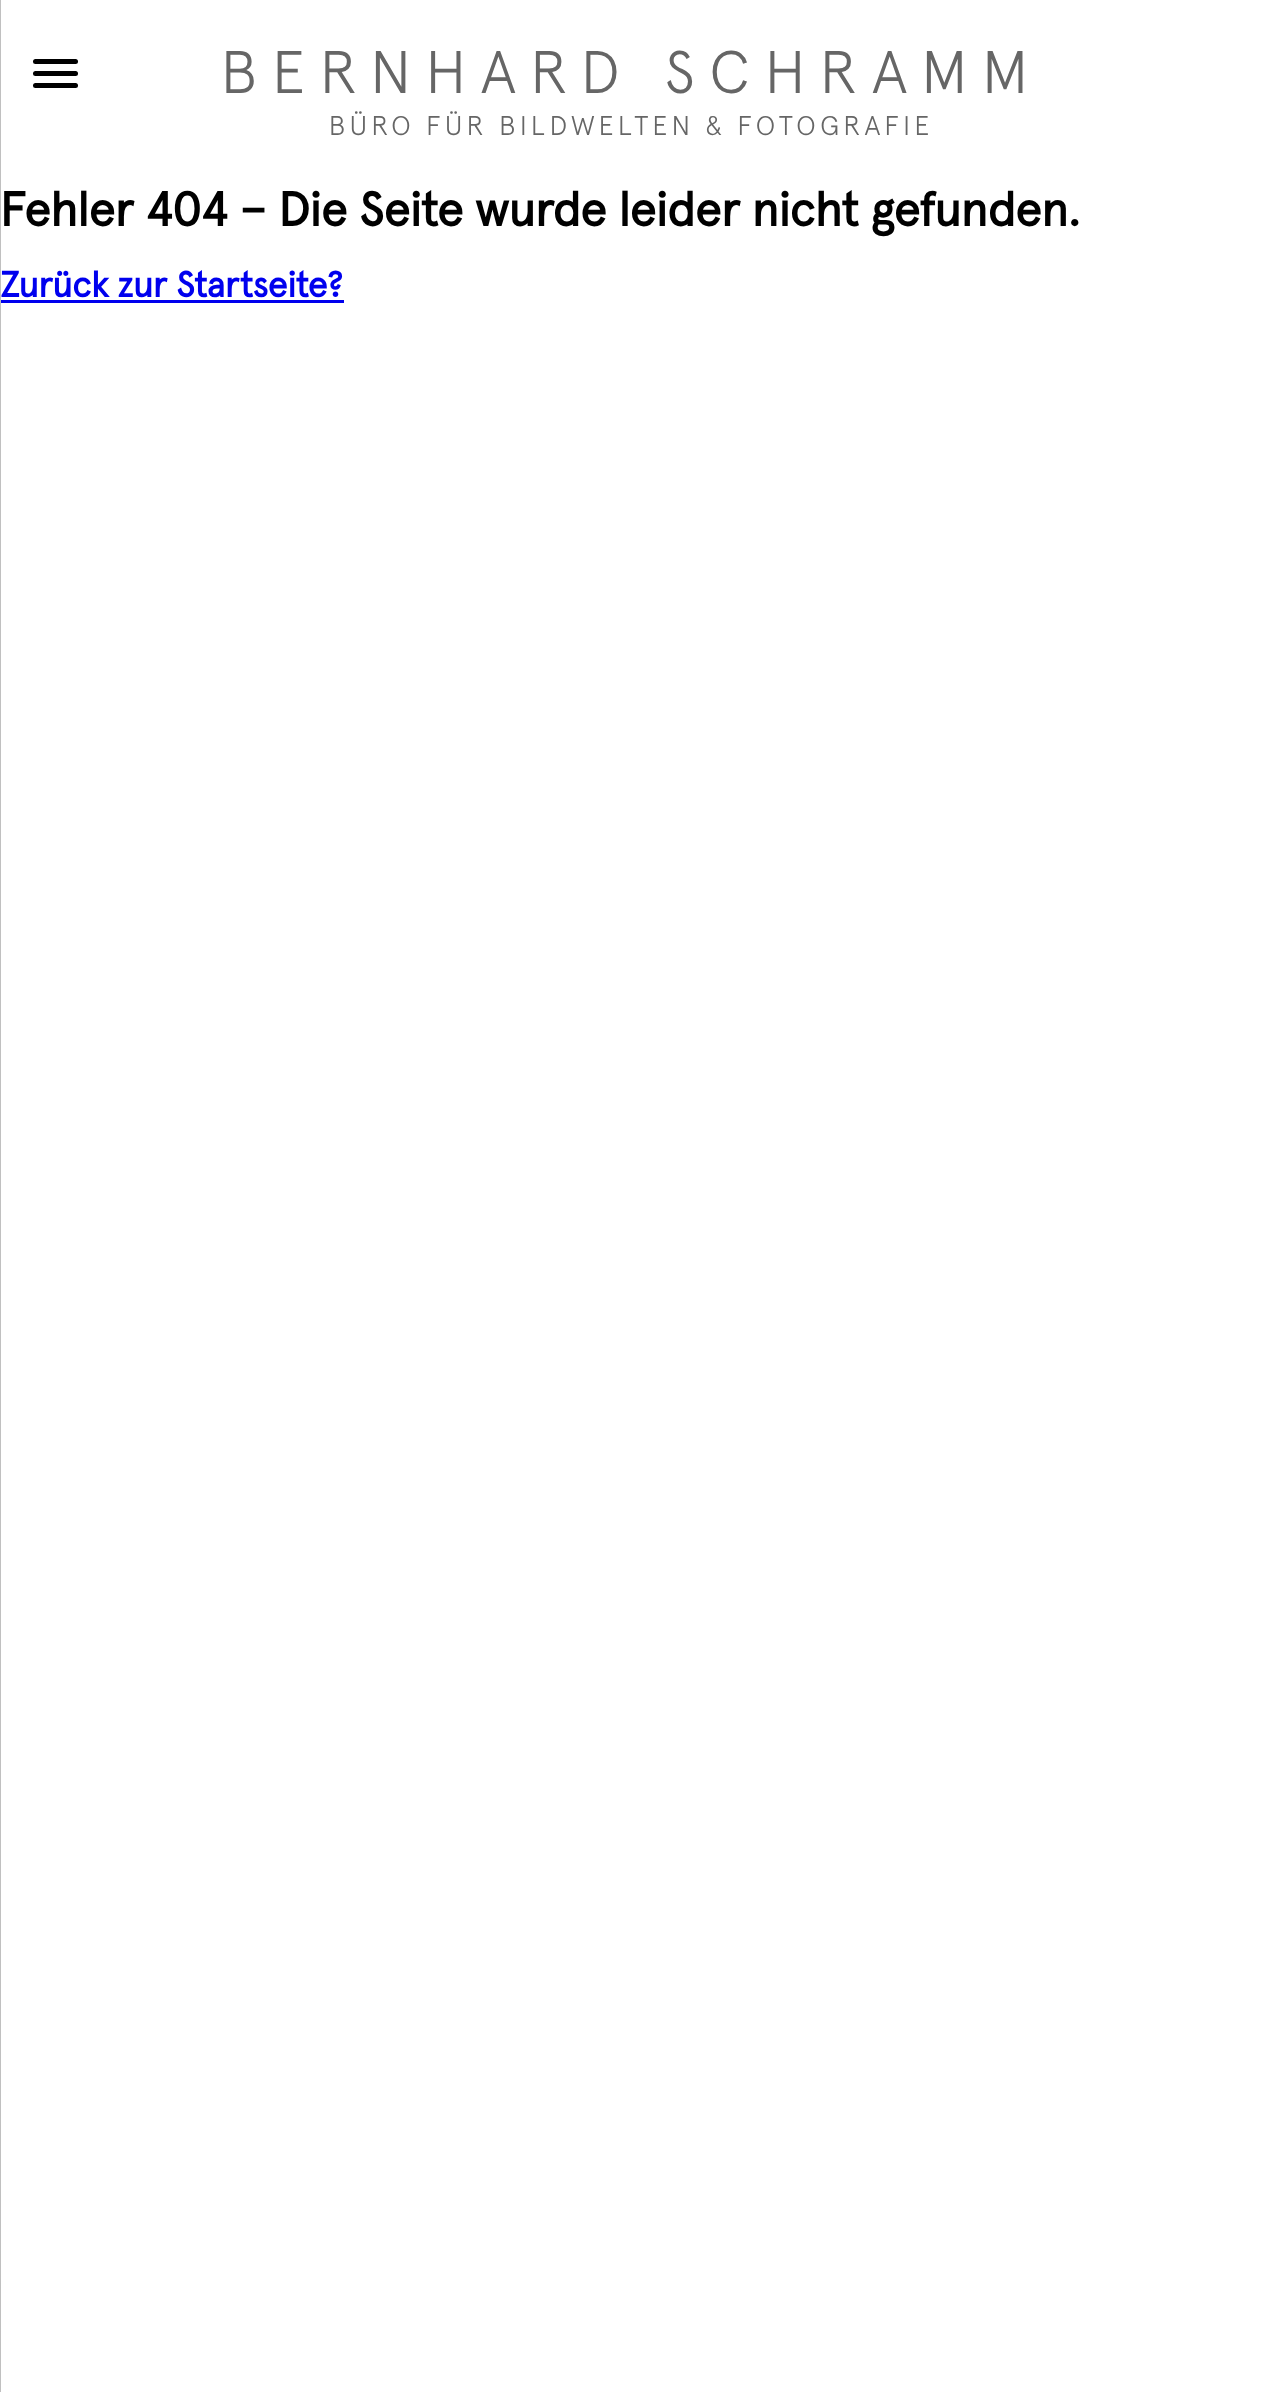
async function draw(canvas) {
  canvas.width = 1262
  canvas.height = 2392
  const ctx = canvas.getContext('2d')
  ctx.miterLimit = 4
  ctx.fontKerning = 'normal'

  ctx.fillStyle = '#fff'
  ctx.fillRect(0, 0, 1262, 2392)
  ctx.fillStyle = '#00e'
  ctx.fillRect(0, 300, 344, 3)
  ctx.fillStyle = '#c0c0c0'
  ctx.fillRect(0, 0, 1, 2392)
  ctx.letterSpacing = '15px'
  ctx.font = '300 60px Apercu'
  ctx.fillStyle = '#666'
  ctx.fillText('BERNHARD SCHRAMM', 221, 93)
  ctx.letterSpacing = '4.5px'
  ctx.font = '300 27px Apercu'
  ctx.fillText('BÜRO FÜR BILDWELTEN & FOTOGRAFIE', 329, 135)
  ctx.letterSpacing = '0px'
  ctx.font = 'bold 48px Apercu'
  ctx.fillStyle = '#000'
  ctx.fillText('Fehler 404 – Die Seite wurde leider nicht gefunden.', 0, 226)
  ctx.font = 'bold 36px Apercu'
  ctx.fillStyle = '#00e'
  ctx.fillText('Zurück zur Startseite?', 0, 297)
  ctx.fillStyle = '#000'
  ctx.beginPath()
  ctx.roundRect(33, 71, 45, 5, 2.5)
  ctx.fill()
  ctx.beginPath()
  ctx.roundRect(33, 59, 45, 5, 2.5)
  ctx.fill()
  ctx.beginPath()
  ctx.roundRect(33, 83, 45, 5, 2.5)
  ctx.fill()
}

draw(document.querySelector('canvas'))
